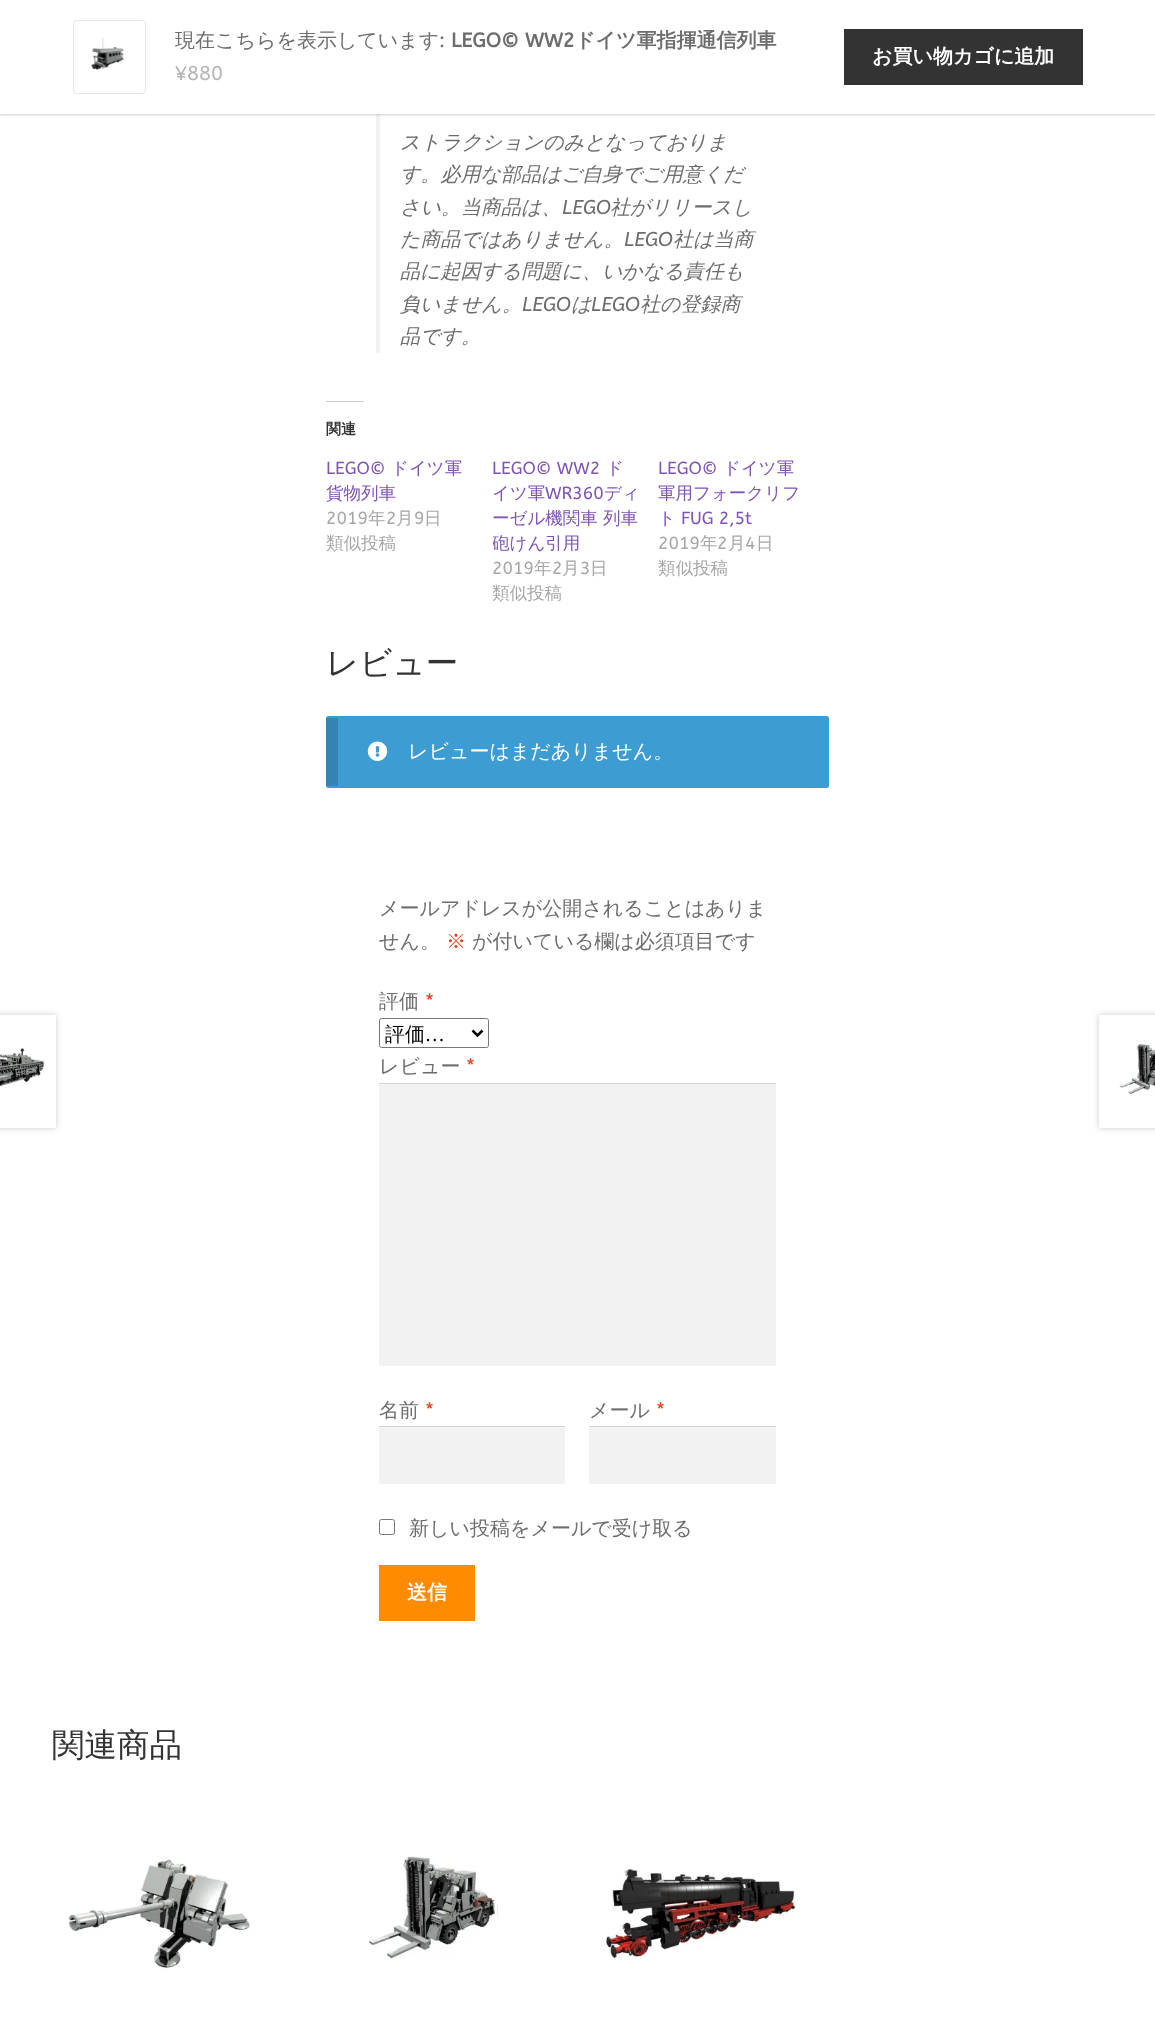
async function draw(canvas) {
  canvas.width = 1155
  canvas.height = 2030
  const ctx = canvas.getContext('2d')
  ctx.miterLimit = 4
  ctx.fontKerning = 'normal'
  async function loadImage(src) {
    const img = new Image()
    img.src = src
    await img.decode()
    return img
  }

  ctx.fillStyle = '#fff'
  ctx.fillRect(0, 0, 1155, 2030)
  ctx.fillStyle = '#f2f2f2'
  ctx.fillRect(376, 114, 4, 239)
  ctx.fillStyle = '#00000033'
  ctx.filter = 'blur(1px)'
  ctx.beginPath()
  ctx.rect(0, 1, 1155, 114)
  ctx.fill()
  ctx.filter = 'none'
  ctx.fillStyle = '#fff'
  ctx.fillRect(0, 0, 1155, 114)
  ctx.beginPath()
  ctx.roundRect(73.5, 20.5, 72, 73, 3.5)
  ctx.strokeStyle = '#e6e6e6'
  ctx.stroke()
  ctx.drawImage(await loadImage('image0.png'), 91, 37, 34, 33)
  ctx.font = '500 20px WenQuanYi Zen Hei'
  ctx.fillStyle = '#6d6d6d'
  ctx.fillText('現在こちらを表示しています', 175, 47)
  ctx.font = '20px ABeeZee'
  ctx.fillText(':', 439, 47)
  ctx.font = 'bold 20px ABeeZee'
  ctx.fillText('LEGO© WW2', 451, 47)
  ctx.font = 'bold 20px WenQuanYi Zen Hei'
  ctx.fillText('ドイツ軍指揮通信列車', 575, 47)
  ctx.font = '20px ABeeZee'
  ctx.fillStyle = '#b6b6b6'
  ctx.fillText('¥880', 175, 80)
  ctx.fillStyle = '#333'
  ctx.fillRect(844, 29, 239, 56)
  ctx.font = 'bold 20px WenQuanYi Zen Hei'
  ctx.fillStyle = '#fff'
  ctx.fillText('お買い物カゴに追加', 872, 63)
  ctx.font = 'italic 500 20px WenQuanYi Zen Hei'
  ctx.fillStyle = '#6d6d6d'
  ctx.fillText('ストラクションのみとなっておりま', 400, 149)
  ctx.fillText('す。必用な部品はご自身でご用意くだ', 400, 181)
  ctx.fillText('さい。当商品は、', 400, 214)
  ctx.font = 'italic 20px ABeeZee'
  ctx.fillText('LEGO', 562, 214)
  ctx.font = 'italic 500 20px WenQuanYi Zen Hei'
  ctx.fillText('社がリリースし', 610, 214)
  ctx.fillText('た商品ではありません。', 400, 246)
  ctx.font = 'italic 20px ABeeZee'
  ctx.fillText('LEGO', 624, 246)
  ctx.font = 'italic 500 20px WenQuanYi Zen Hei'
  ctx.fillText('社は当商', 673, 246)
  ctx.fillText('品に起因する問題に、いかなる責任も', 400, 278)
  ctx.fillText('負いません。', 400, 311)
  ctx.font = 'italic 20px ABeeZee'
  ctx.fillText('LEGO', 522, 311)
  ctx.font = 'italic 500 20px WenQuanYi Zen Hei'
  ctx.fillText('は', 571, 311)
  ctx.font = 'italic 20px ABeeZee'
  ctx.fillText('LEGO', 591, 311)
  ctx.font = 'italic 500 20px WenQuanYi Zen Hei'
  ctx.fillText('社の登録商', 640, 311)
  ctx.fillText('品です。', 400, 343)
  ctx.fillStyle = '#ccc'
  ctx.fillRect(326, 401, 38, 1)
  ctx.font = 'bold 15px WenQuanYi Zen Hei'
  ctx.fillStyle = '#333'
  ctx.fillText('関連', 326, 434)
  ctx.font = '17.5px ABeeZee'
  ctx.fillStyle = '#7f54b3'
  ctx.fillText('LEGO©', 326, 474)
  ctx.font = '500 17.5px WenQuanYi Zen Hei'
  ctx.fillText('ドイツ軍', 391, 474)
  ctx.fillText('貨物列車', 326, 499)
  ctx.font = '17.5px ABeeZee'
  ctx.fillStyle = '#a7a7a7'
  ctx.fillText('2019', 326, 524)
  ctx.font = '500 17.5px WenQuanYi Zen Hei'
  ctx.fillText('年', 368, 524)
  ctx.font = '17.5px ABeeZee'
  ctx.fillText('2', 386, 524)
  ctx.font = '500 17.5px WenQuanYi Zen Hei'
  ctx.fillText('月', 396, 524)
  ctx.font = '17.5px ABeeZee'
  ctx.fillText('9', 414, 524)
  ctx.font = '500 17.5px WenQuanYi Zen Hei'
  ctx.fillText('日', 424, 524)
  ctx.fillText('類似投稿', 326, 549)
  ctx.font = '17.5px ABeeZee'
  ctx.fillStyle = '#7f54b3'
  ctx.fillText('LEGO© WW2', 492, 474)
  ctx.font = '500 17.5px WenQuanYi Zen Hei'
  ctx.fillText('ド', 606, 474)
  ctx.fillText('イツ軍', 492, 499)
  ctx.font = '17.5px ABeeZee'
  ctx.fillText('WR360', 545, 499)
  ctx.font = '500 17.5px WenQuanYi Zen Hei'
  ctx.fillText('ディ', 604, 499)
  ctx.fillText('ーゼル機関車 列車', 492, 524)
  ctx.save()
  ctx.beginPath()
  ctx.rect(493, 456, 148, 100)
  ctx.clip()
  ctx.fillText('砲けん引用', 492, 549)
  ctx.restore()
  ctx.font = '17.5px ABeeZee'
  ctx.fillStyle = '#a7a7a7'
  ctx.fillText('2019', 492, 574)
  ctx.font = '500 17.5px WenQuanYi Zen Hei'
  ctx.fillText('年', 534, 574)
  ctx.font = '17.5px ABeeZee'
  ctx.fillText('2', 552, 574)
  ctx.font = '500 17.5px WenQuanYi Zen Hei'
  ctx.fillText('月', 562, 574)
  ctx.font = '17.5px ABeeZee'
  ctx.fillText('3', 580, 574)
  ctx.font = '500 17.5px WenQuanYi Zen Hei'
  ctx.fillText('日', 590, 574)
  ctx.save()
  ctx.beginPath()
  ctx.rect(493, 581, 148, 25)
  ctx.clip()
  ctx.fillText('類似投稿', 492, 599)
  ctx.restore()
  ctx.font = '17.5px ABeeZee'
  ctx.fillStyle = '#7f54b3'
  ctx.fillText('LEGO©', 658, 474)
  ctx.font = '500 17.5px WenQuanYi Zen Hei'
  ctx.fillText('ドイツ軍', 723, 474)
  ctx.fillText('軍用フォークリフ', 658, 499)
  ctx.fillText('ト', 658, 524)
  ctx.font = '17.5px ABeeZee'
  ctx.fillText('FUG 2,5t', 681, 524)
  ctx.fillStyle = '#a7a7a7'
  ctx.fillText('2019', 658, 549)
  ctx.font = '500 17.5px WenQuanYi Zen Hei'
  ctx.fillText('年', 700, 549)
  ctx.font = '17.5px ABeeZee'
  ctx.fillText('2', 717, 549)
  ctx.font = '500 17.5px WenQuanYi Zen Hei'
  ctx.fillText('月', 728, 549)
  ctx.font = '17.5px ABeeZee'
  ctx.fillText('4', 745, 549)
  ctx.font = '500 17.5px WenQuanYi Zen Hei'
  ctx.fillText('日', 756, 549)
  ctx.fillText('類似投稿', 658, 574)
  ctx.font = '500 32.5px WenQuanYi Zen Hei'
  ctx.fillStyle = '#333'
  ctx.fillText('レビュー', 326, 674)
  ctx.fillStyle = '#3d9cd2'
  ctx.beginPath()
  ctx.roundRect(326, 716, 503, 72, 2.5)
  ctx.fill()
  ctx.fillStyle = '#00000026'
  ctx.fillRect(326, 718, 12, 68)
  ctx.drawImage(await loadImage('image1.png'), 367, 741, 21, 20)
  ctx.font = '500 20px WenQuanYi Zen Hei'
  ctx.fillStyle = '#fff'
  ctx.fillText('レビューはまだありません。', 408, 758)
  ctx.fillStyle = '#6d6d6d'
  ctx.fillText('メールアドレスが公開されることはありま', 379, 915)
  ctx.fillText('せん。', 379, 948)
  ctx.fillStyle = '#e2401c'
  ctx.fillText('※', 446, 948)
  ctx.fillStyle = '#6d6d6d'
  ctx.fillText('が付いている欄は必須項目です', 472, 948)
  ctx.fillText('評価', 379, 1008)
  ctx.font = '20px ABeeZee'
  ctx.fillStyle = '#e2401c'
  ctx.fillText('*', 425, 1008)
  ctx.beginPath()
  ctx.roundRect(379.5, 1018.5, 109, 29, 2)
  ctx.strokeStyle = '#767676'
  ctx.stroke()
  ctx.beginPath()
  ctx.moveTo(472.5, 1030.5)
  ctx.lineTo(477.5, 1035.5)
  ctx.lineTo(482.5, 1030.5)
  ctx.strokeStyle = '#000'
  ctx.lineWidth = 2.5
  ctx.stroke()
  ctx.font = '500 20px WenQuanYi Zen Hei'
  ctx.fillStyle = '#000'
  ctx.fillText('評価', 385, 1041)
  ctx.font = '20px Source Sans Pro'
  ctx.fillText('…', 425, 1041)
  ctx.font = '500 20px WenQuanYi Zen Hei'
  ctx.fillStyle = '#6d6d6d'
  ctx.fillText('レビュー', 379, 1073)
  ctx.font = '20px ABeeZee'
  ctx.fillStyle = '#e2401c'
  ctx.fillText('*', 466, 1073)
  ctx.fillStyle = '#f2f2f2'
  ctx.fillRect(379, 1084, 397, 282)
  ctx.fillStyle = '#d4d4d4'
  ctx.fillRect(379, 1083, 397, 1)
  ctx.font = '500 20px WenQuanYi Zen Hei'
  ctx.fillStyle = '#6d6d6d'
  ctx.fillText('名前', 379, 1417)
  ctx.font = '20px ABeeZee'
  ctx.fillStyle = '#e2401c'
  ctx.fillText('*', 425, 1417)
  ctx.fillStyle = '#f2f2f2'
  ctx.fillRect(379, 1427, 186, 57)
  ctx.fillStyle = '#d4d4d4'
  ctx.fillRect(379, 1426, 186, 1)
  ctx.font = '500 20px WenQuanYi Zen Hei'
  ctx.fillStyle = '#6d6d6d'
  ctx.fillText('メール', 589, 1417)
  ctx.font = '20px ABeeZee'
  ctx.fillStyle = '#e2401c'
  ctx.fillText('*', 656, 1417)
  ctx.fillStyle = '#f2f2f2'
  ctx.fillRect(589, 1427, 187, 57)
  ctx.fillStyle = '#d4d4d4'
  ctx.fillRect(589, 1426, 187, 1)
  ctx.beginPath()
  ctx.roundRect(379.5, 1519.5, 15, 15, 2)
  ctx.strokeStyle = '#767676'
  ctx.lineWidth = 1
  ctx.stroke()
  ctx.font = '500 20px WenQuanYi Zen Hei'
  ctx.fillStyle = '#6d6d6d'
  ctx.fillText('新しい投稿をメールで受け取る', 409, 1535)
  ctx.fillStyle = '#ff8c00'
  ctx.fillRect(379, 1565, 96, 56)
  ctx.font = 'bold 20px WenQuanYi Zen Hei'
  ctx.fillStyle = '#fff'
  ctx.fillText('送信', 407, 1599)
  ctx.fillStyle = '#00000033'
  ctx.filter = 'blur(3px)'
  ctx.beginPath()
  ctx.rect(-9, 1015, 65, 113)
  ctx.fill()
  ctx.filter = 'none'
  ctx.fillStyle = '#fff'
  ctx.fillRect(0, 1015, 56, 113)
  ctx.drawImage(await loadImage('image2.png'), 0, 1048, 45, 38)
  ctx.fillStyle = '#00000033'
  ctx.filter = 'blur(3px)'
  ctx.beginPath()
  ctx.rect(1099, 1015, 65, 113)
  ctx.fill()
  ctx.filter = 'none'
  ctx.fillStyle = '#fff'
  ctx.fillRect(1099, 1015, 56, 113)
  ctx.drawImage(await loadImage('image3.png'), 1119, 1044, 36, 51)
  ctx.font = '500 32.5px WenQuanYi Zen Hei'
  ctx.fillStyle = '#333'
  ctx.fillText('関連商品', 52, 1756)
  ctx.drawImage(await loadImage('image4.png'), 68, 1859, 182, 111)
  ctx.drawImage(await loadImage('image5.png'), 369, 1856, 129, 103)
  ctx.drawImage(await loadImage('image6.png'), 606, 1868, 192, 91)
}

draw(document.querySelector('canvas'))
